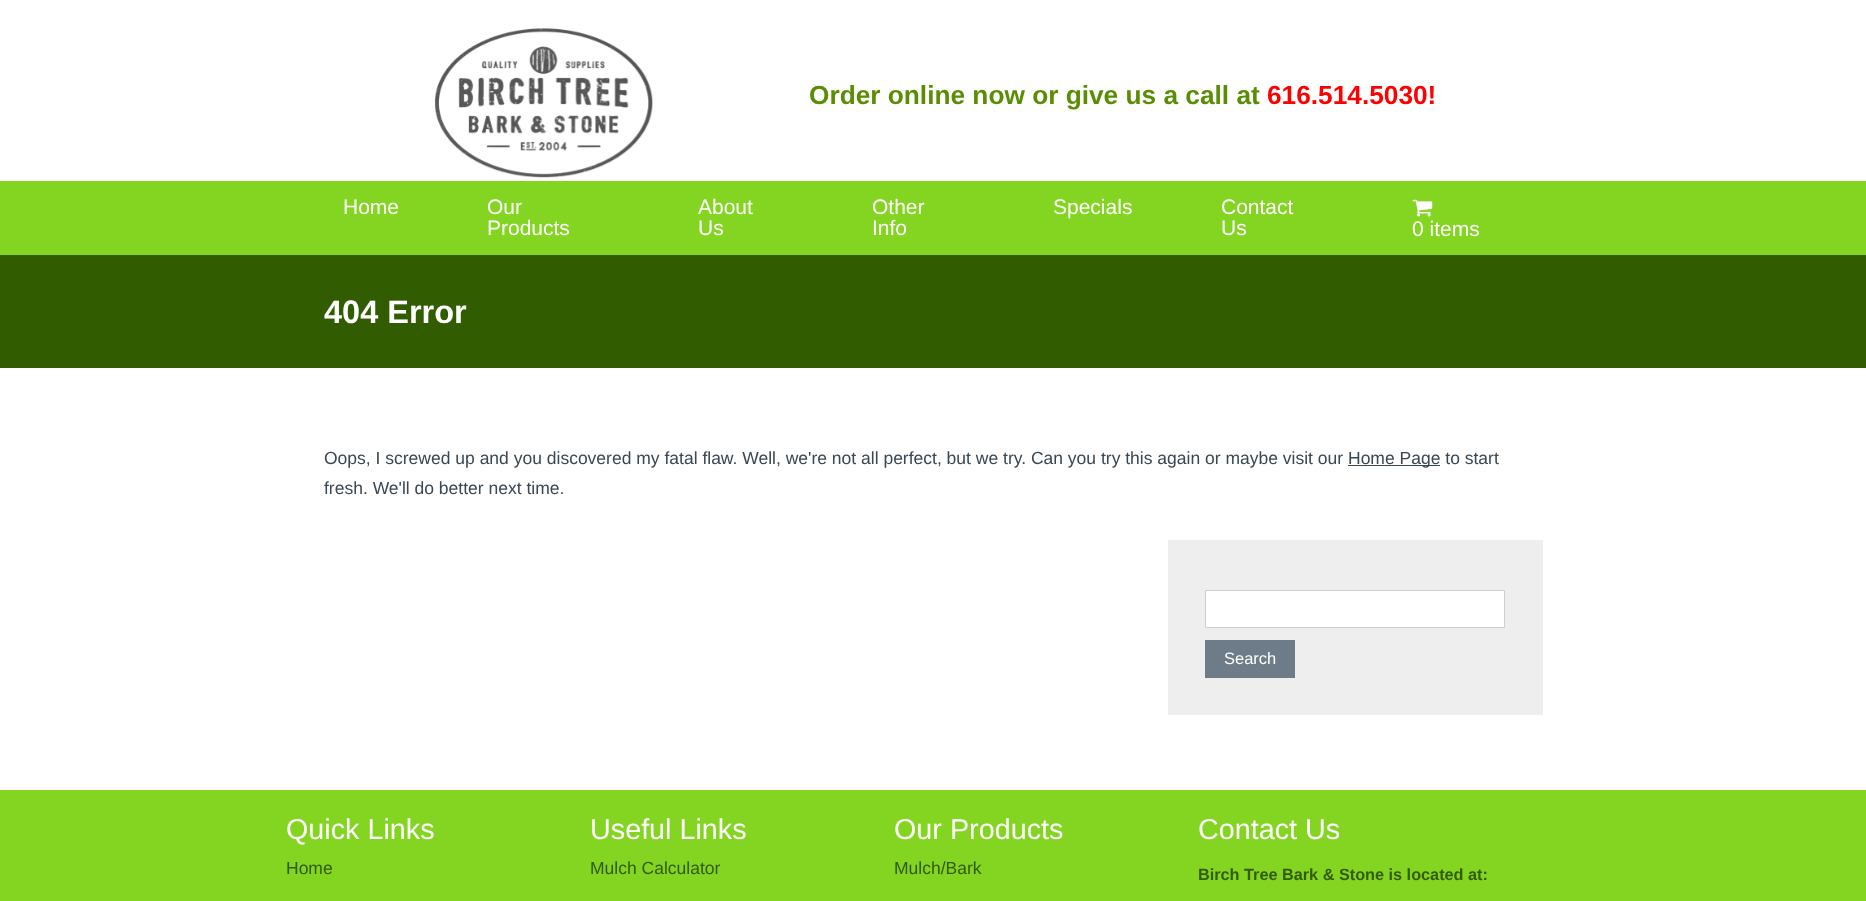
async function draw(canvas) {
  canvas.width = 1866
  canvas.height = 901
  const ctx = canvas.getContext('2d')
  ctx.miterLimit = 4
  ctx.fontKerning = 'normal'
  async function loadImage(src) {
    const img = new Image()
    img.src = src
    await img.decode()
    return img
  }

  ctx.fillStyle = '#83d521'
  ctx.fillRect(0, 0, 1866, 901)
  ctx.fillStyle = '#fff'
  ctx.fillRect(0, 0, 1866, 181)
  ctx.drawImage(await loadImage('image0.png'), 435, 28, 218, 150)
  ctx.font = 'bold 26.25px Liberation Sans'
  ctx.fillStyle = '#598e04'
  ctx.fillText('Order online now or give us a call at', 809, 104)
  ctx.fillStyle = '#f00'
  ctx.fillText('616.514.5030!', 1267, 104)
  ctx.font = '21px Liberation Sans'
  ctx.fillStyle = '#fff'
  ctx.fillText('Home', 343, 214)
  ctx.fillText('Our', 487, 214)
  ctx.fillText('Products', 487, 235)
  ctx.fillText('About', 698, 214)
  ctx.fillText('Us', 698, 235)
  ctx.fillText('Other', 872, 214)
  ctx.fillText('Info', 872, 235)
  ctx.fillText('Specials', 1053, 214)
  ctx.fillText('Contact', 1221, 214)
  ctx.fillText('Us', 1221, 235)
  ctx.drawImage(await loadImage('image1.png'), 1412, 199, 21, 18)
  ctx.fillText('0 items', 1412, 236)
  ctx.fillStyle = '#325c00'
  ctx.fillRect(0, 255, 1866, 113)
  ctx.font = 'bold 32.5px Liberation Sans'
  ctx.fillStyle = '#fff'
  ctx.fillText('404 Error', 324, 323)
  ctx.fillRect(0, 368, 1866, 422)
  ctx.font = '17.5px Liberation Sans'
  ctx.fillStyle = '#394753'
  ctx.fillText('Oops, I screwed up and you discovered my fatal flaw. Well, we\'re not all perfect, but we try. Can you try this again or maybe visit our', 324, 464)
  ctx.fillRect(1348, 465, 92, 1)
  ctx.fillText('Home Page to start', 1348, 464)
  ctx.fillText('fresh. We\'ll do better next time.', 324, 494)
  ctx.fillStyle = '#eee'
  ctx.fillRect(1168, 540, 375, 175)
  ctx.fillStyle = '#fff'
  ctx.beginPath()
  ctx.rect(1205.5, 590.5, 299, 37)
  ctx.fill()
  ctx.strokeStyle = '#cecece'
  ctx.stroke()
  ctx.fillStyle = '#6d7c88'
  ctx.fillRect(1205, 640, 90, 38)
  ctx.font = '16.5px Liberation Sans'
  ctx.fillStyle = '#fff'
  ctx.fillText('Search', 1224, 664)
  ctx.font = '28.75px Liberation Sans'
  ctx.fillText('Quick Links', 286, 839)
  ctx.font = '17.5px Liberation Sans'
  ctx.fillStyle = '#325c00'
  ctx.fillText('Home', 286, 874)
  ctx.font = '28.75px Liberation Sans'
  ctx.fillStyle = '#fff'
  ctx.fillText('Useful Links', 590, 839)
  ctx.font = '17.5px Liberation Sans'
  ctx.fillStyle = '#325c00'
  ctx.fillText('Mulch Calculator', 590, 874)
  ctx.font = '28.75px Liberation Sans'
  ctx.fillStyle = '#fff'
  ctx.fillText('Our Products', 894, 839)
  ctx.font = '17.5px Liberation Sans'
  ctx.fillStyle = '#325c00'
  ctx.fillText('Mulch/Bark', 894, 874)
  ctx.font = '28.75px Liberation Sans'
  ctx.fillStyle = '#fff'
  ctx.fillText('Contact Us', 1198, 839)
  ctx.font = 'bold 16.25px Liberation Sans'
  ctx.fillStyle = '#325c00'
  ctx.fillText('Birch Tree Bark & Stone is located at:', 1198, 880)
}

draw(document.querySelector('canvas'))
